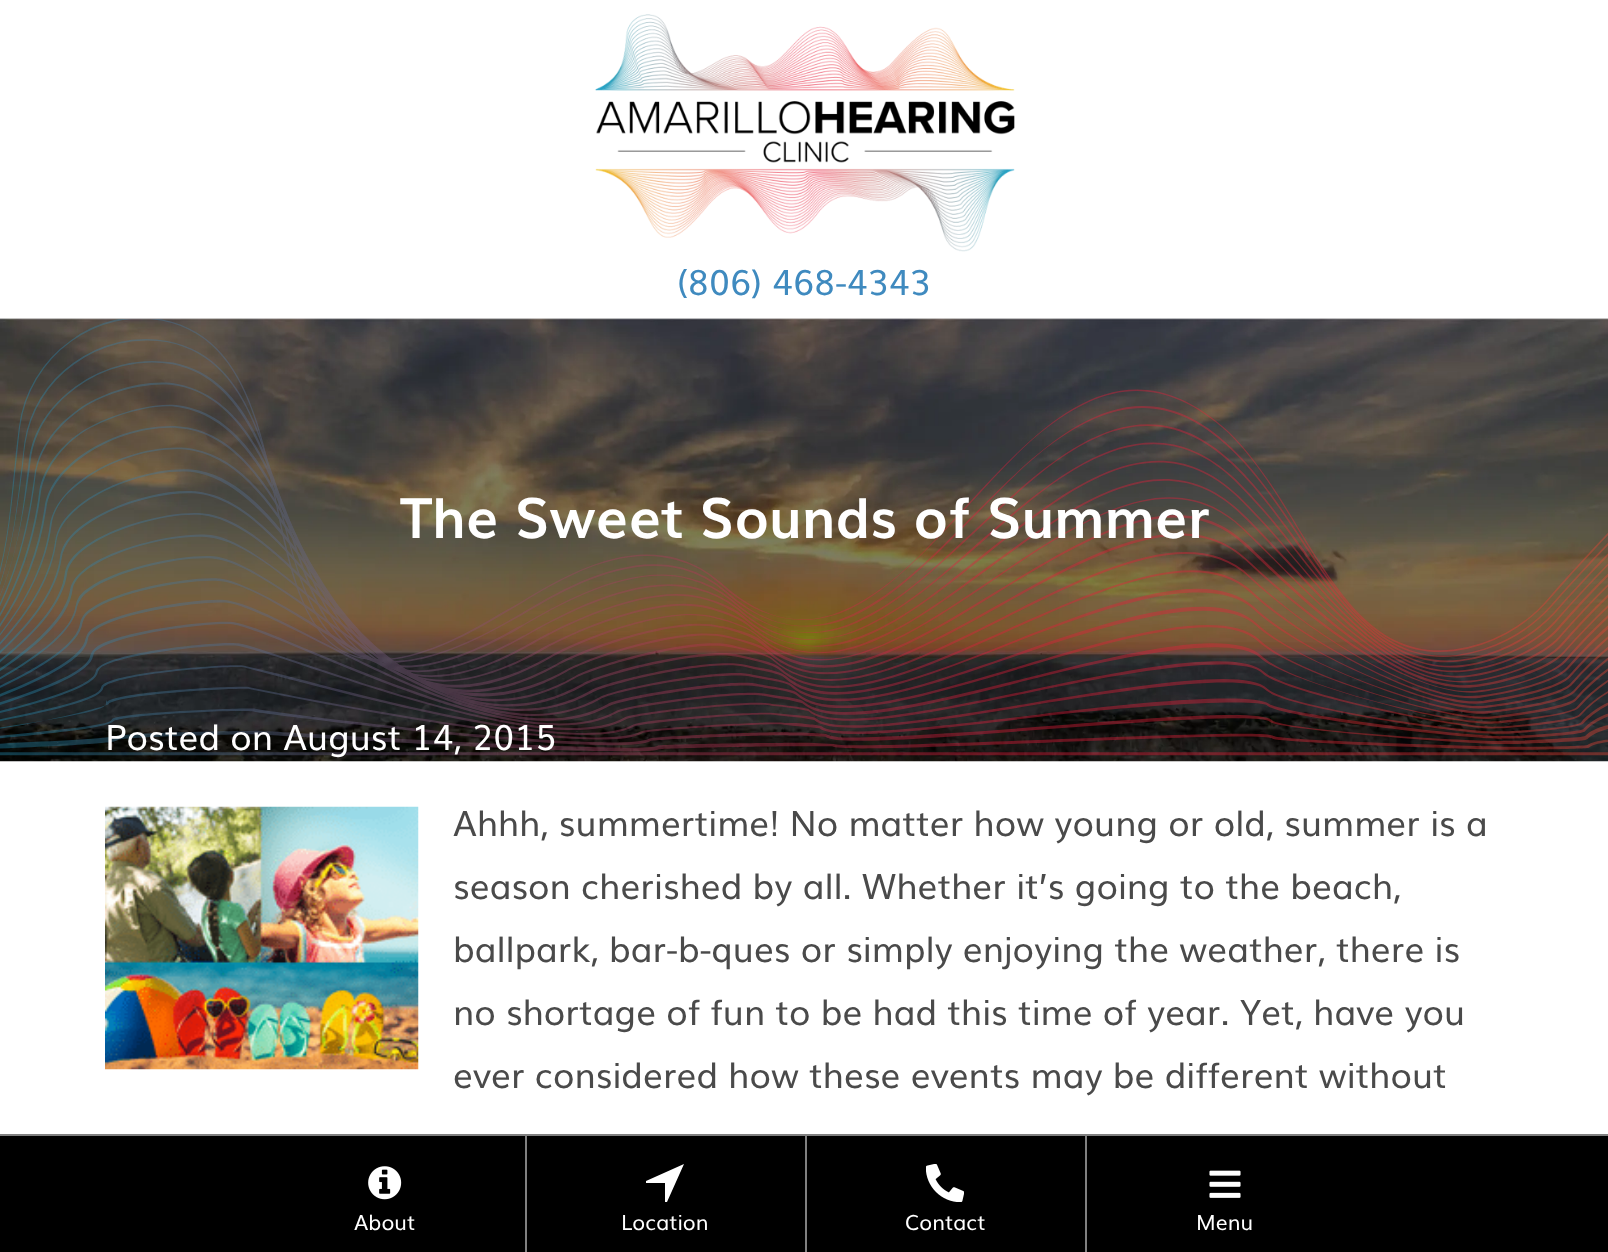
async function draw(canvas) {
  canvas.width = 1608
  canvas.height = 1252
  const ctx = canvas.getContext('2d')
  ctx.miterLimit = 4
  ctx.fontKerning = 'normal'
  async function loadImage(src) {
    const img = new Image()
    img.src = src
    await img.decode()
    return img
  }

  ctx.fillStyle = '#fff'
  ctx.fillRect(0, 0, 1608, 1252)
  ctx.drawImage(await loadImage('image0.png'), 595, 14, 420, 238)
  ctx.font = '35px Muli'
  ctx.fillStyle = '#3f8abf'
  ctx.fillText('(806) 468-4343', 677, 295)
  ctx.drawImage(await loadImage('image1.png'), 0, 318, 1608, 444)
  ctx.drawImage(await loadImage('image2.png'), 0, 319, 1608, 437)
  ctx.font = 'bold 56px Muli'
  ctx.fillStyle = '#fff'
  ctx.fillText('The Sweet Sounds of Summer', 400, 538)
  ctx.font = '35px Muli'
  ctx.fillText('Posted on August 14, 2015', 105, 750)
  ctx.drawImage(await loadImage('image3.png'), 105, 806, 314, 264)
  ctx.fillStyle = '#4a4a4a'
  ctx.fillText('Ahhh, summertime! No matter how young or old, summer is a', 453, 836)
  ctx.fillText('season cherished by all. Whether it’s going to the beach,', 453, 899)
  ctx.fillText('ballpark, bar-b-ques or simply enjoying the weather, there is', 453, 962)
  ctx.fillText('no shortage of fun to be had this time of year. Yet, have you', 453, 1025)
  ctx.fillText('ever considered how these events may be different without', 453, 1088)
  ctx.fillStyle = '#000'
  ctx.fillRect(0, 1136, 1608, 116)
  ctx.fillStyle = '#808080'
  ctx.fillRect(0, 1134, 1608, 2)
  ctx.drawImage(await loadImage('image4.png'), 368, 1166, 34, 34)
  ctx.font = '21px Muli'
  ctx.fillStyle = '#fff'
  ctx.fillText('About', 354, 1230)
  ctx.fillStyle = '#808080'
  ctx.fillRect(525, 1136, 2, 116)
  ctx.fillStyle = '#fff'
  ctx.beginPath()
  ctx.moveTo(646, 1183)
  ctx.lineTo(665, 1183)
  ctx.lineTo(665, 1202)
  ctx.lineTo(667, 1202)
  ctx.lineTo(684, 1164)
  ctx.lineTo(646, 1181)
  ctx.closePath()
  ctx.fill()
  ctx.fillText('Location', 621, 1230)
  ctx.fillStyle = '#808080'
  ctx.fillRect(805, 1136, 2, 116)
  ctx.drawImage(await loadImage('image5.png'), 926, 1164, 38, 38)
  ctx.fillStyle = '#fff'
  ctx.fillText('Contact', 905, 1230)
  ctx.fillStyle = '#808080'
  ctx.fillRect(1085, 1136, 2, 116)
  ctx.drawImage(await loadImage('image6.png'), 1209, 1170, 32, 28)
  ctx.fillStyle = '#fff'
  ctx.fillText('Menu', 1196, 1230)
}

draw(document.querySelector('canvas'))
